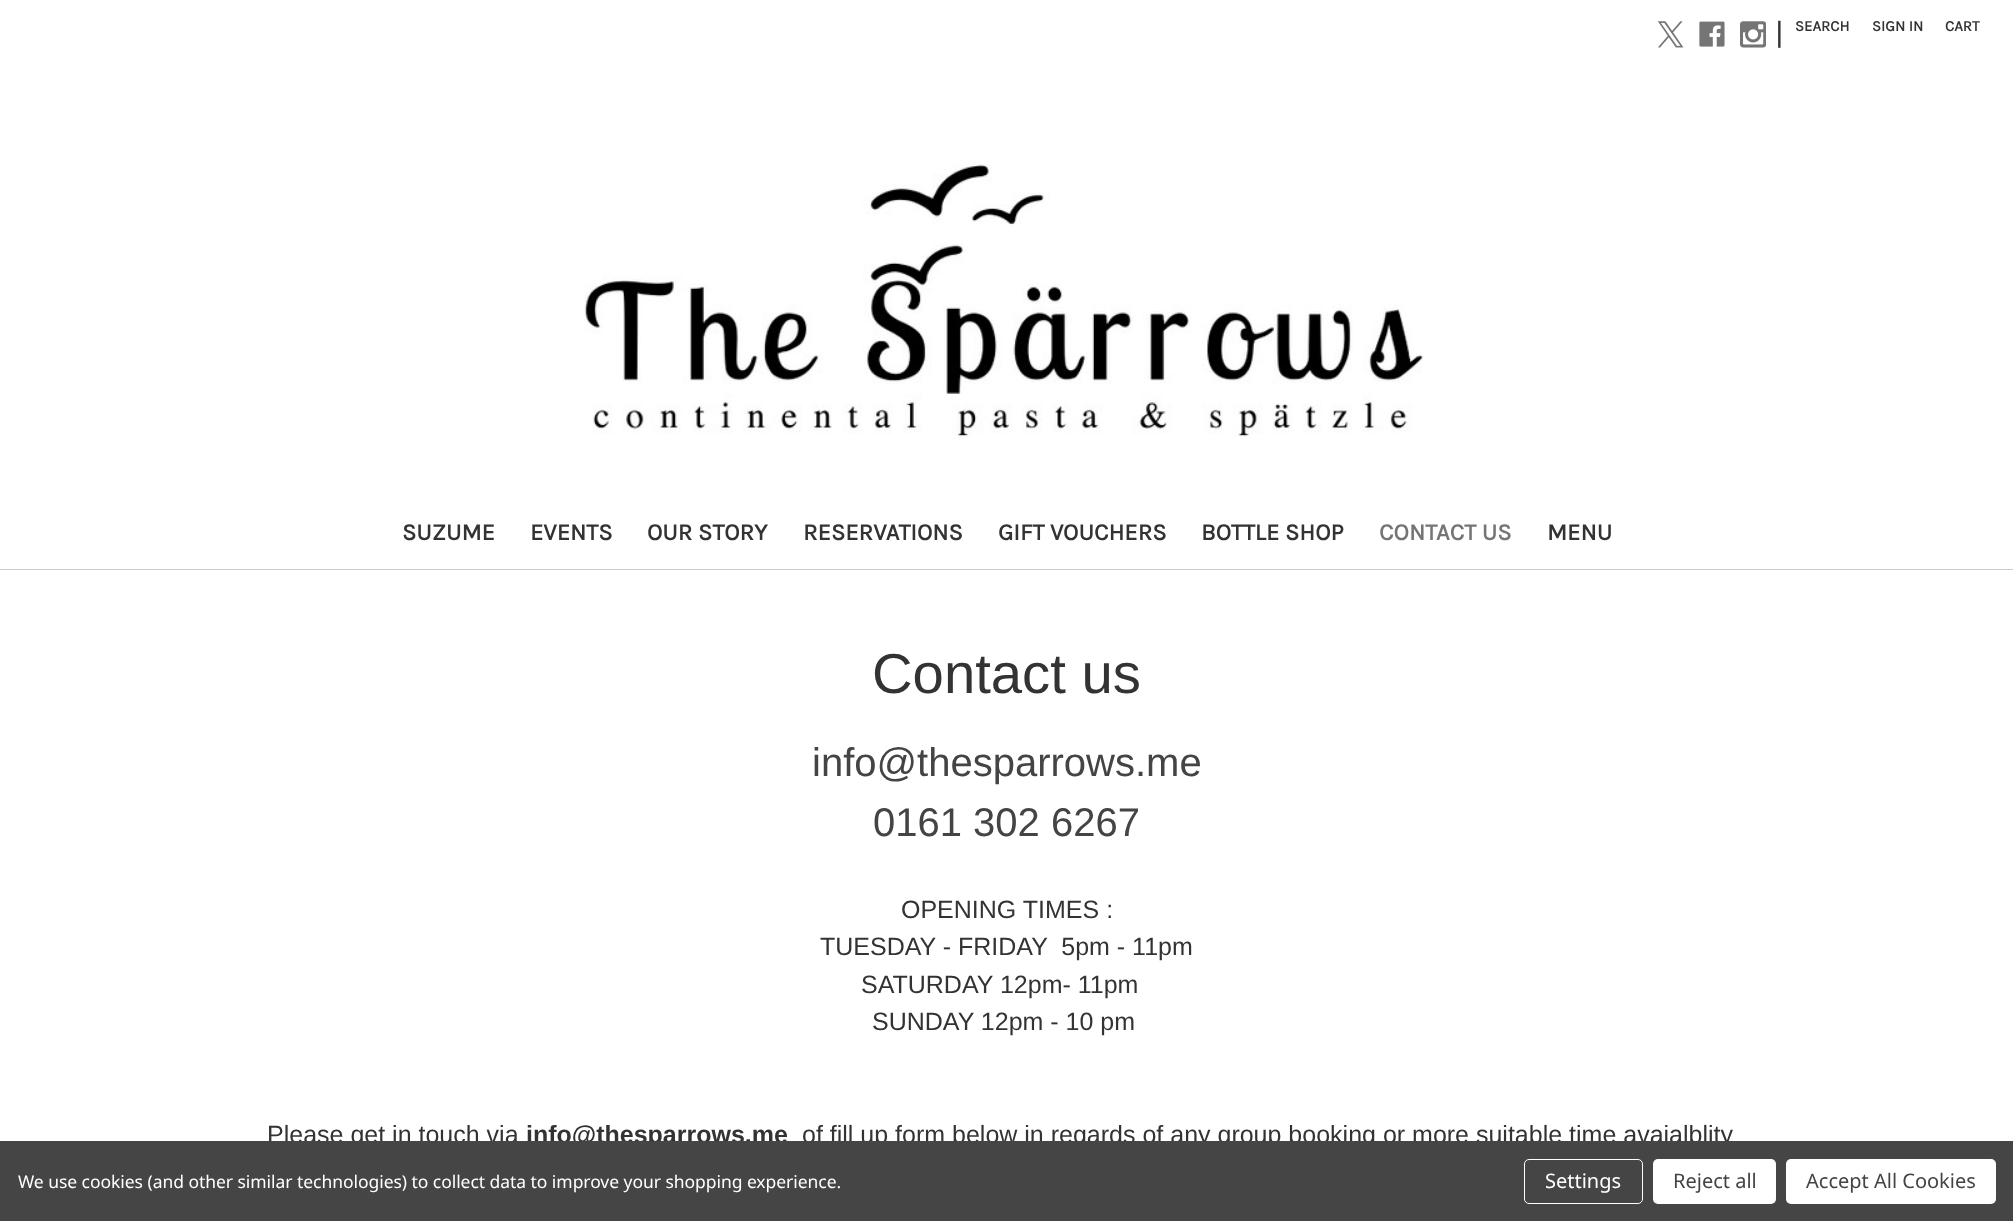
async function draw(canvas) {
  canvas.width = 2013
  canvas.height = 1221
  const ctx = canvas.getContext('2d')
  ctx.miterLimit = 4
  ctx.fontKerning = 'normal'
  async function loadImage(src) {
    const img = new Image()
    img.src = src
    await img.decode()
    return img
  }

  ctx.fillStyle = '#fff'
  ctx.fillRect(0, 0, 2013, 1221)
  ctx.fillStyle = '#ccc'
  ctx.fillRect(0, 569, 2013, 1)
  ctx.drawImage(await loadImage('image0.png'), 1658, 21, 26, 27)
  ctx.drawImage(await loadImage('image1.png'), 1699, 21, 26, 26)
  ctx.drawImage(await loadImage('image2.png'), 1740, 21, 26, 27)
  ctx.font = '31px Karla'
  ctx.fillStyle = '#333'
  ctx.fillText('|', 1775, 44)
  ctx.font = 'bold 15px Karla'
  ctx.fillText('SEARCH', 1795, 31)
  ctx.fillText('SIGN IN', 1872, 31)
  ctx.fillText('CART', 1945, 31)
  ctx.drawImage(await loadImage('image3.png'), 584, 164, 839, 273)
  ctx.font = 'bold 23.75px Karla'
  ctx.fillText('SUZUME', 402, 540)
  ctx.fillText('EVENTS', 530, 540)
  ctx.fillText('OUR STORY', 647, 540)
  ctx.fillText('RESERVATIONS', 803, 540)
  ctx.fillText('GIFT VOUCHERS', 998, 540)
  ctx.fillText('BOTTLE SHOP', 1201, 540)
  ctx.fillStyle = '#757575'
  ctx.fillText('CONTACT US', 1379, 540)
  ctx.fillStyle = '#333'
  ctx.fillText('MENU', 1547, 540)
  ctx.font = '56.25px Liberation Sans'
  ctx.fillText('Contact us', 872, 693)
  ctx.font = '40px Liberation Sans'
  ctx.fillStyle = '#444'
  ctx.fillText('info@thesparrows.me', 812, 776)
  ctx.fillText('0161 302 6267', 873, 836)
  ctx.font = '25px Liberation Sans'
  ctx.fillStyle = '#333'
  ctx.fillText('OPENING TIMES :', 901, 918)
  ctx.fillText('TUESDAY - FRIDAY  5pm - 11pm', 820, 955)
  ctx.fillText('SATURDAY 12pm- 11pm', 861, 993)
  ctx.fillText('SUNDAY 12pm - 10 pm', 872, 1030)
  ctx.fillText('Please get in touch via', 267, 1143)
  ctx.font = 'bold 25px Liberation Sans'
  ctx.fillText('info@thesparrows.me', 526, 1143)
  ctx.font = '25px Liberation Sans'
  ctx.fillText('of fill up form below in regards of any group booking or more suitable time avaialblity', 802, 1143)
  ctx.fillStyle = '#454545'
  ctx.fillRect(0, 1141, 2013, 80)
  ctx.letterSpacing = '-0.05px'
  ctx.font = '17.5px Noto Sans'
  ctx.fillStyle = '#fff'
  ctx.fillText('We use cookies (and other similar technologies) to collect data to improve your shopping experience.', 18, 1188)
  ctx.beginPath()
  ctx.roundRect(1524.5, 1159.5, 118, 44, 4.5)
  ctx.strokeStyle = '#fff'
  ctx.stroke()
  ctx.letterSpacing = '0px'
  ctx.font = '20px Noto Sans'
  ctx.fillText('Settings', 1545, 1188)
  ctx.beginPath()
  ctx.roundRect(1653, 1159, 123, 45, 5)
  ctx.fill()
  ctx.fillStyle = '#444'
  ctx.fillText('Reject all', 1673, 1188)
  ctx.fillStyle = '#fff'
  ctx.beginPath()
  ctx.roundRect(1786, 1159, 210, 45, 5)
  ctx.fill()
  ctx.fillStyle = '#444'
  ctx.fillText('Accept All Cookies', 1806, 1188)
}

draw(document.querySelector('canvas'))
